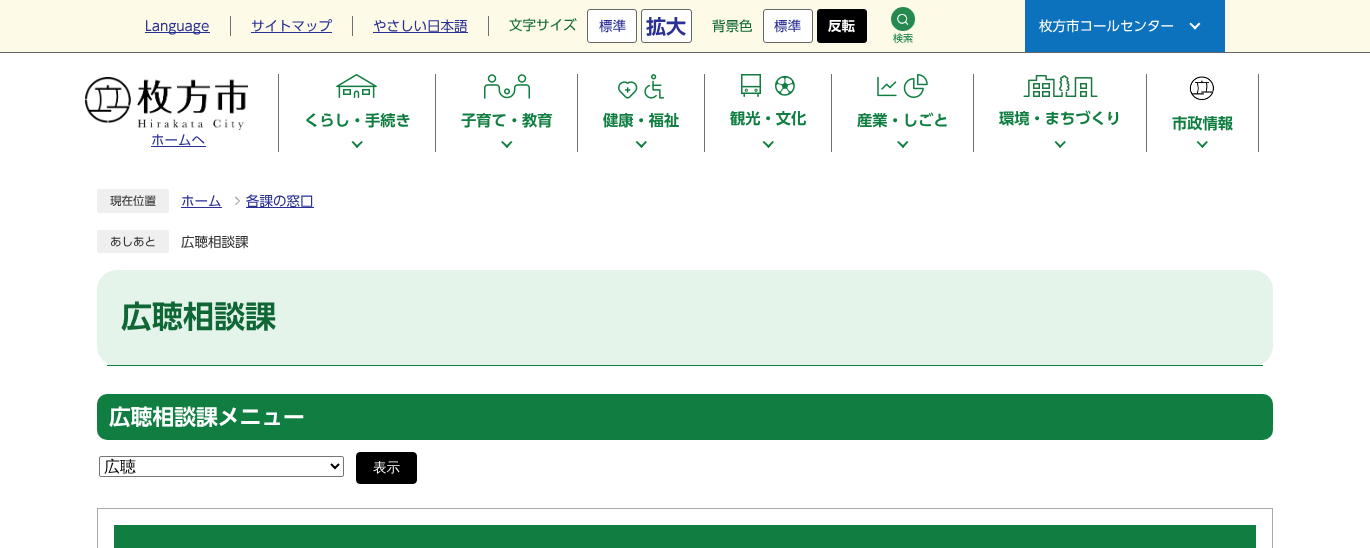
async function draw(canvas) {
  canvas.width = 1370
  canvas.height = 548
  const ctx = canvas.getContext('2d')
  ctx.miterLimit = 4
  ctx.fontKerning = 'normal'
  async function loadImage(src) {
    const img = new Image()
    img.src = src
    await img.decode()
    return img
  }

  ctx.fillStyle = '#fff'
  ctx.fillRect(0, 0, 1370, 548)
  ctx.fillStyle = '#fdfbe8'
  ctx.fillRect(0, 0, 1370, 52)
  ctx.fillStyle = '#666'
  ctx.fillRect(0, 52, 1370, 1)
  ctx.fillStyle = '#707070'
  ctx.fillRect(230, 16, 1, 20)
  ctx.fillStyle = '#2b3095'
  ctx.fillRect(145, 32, 65, 1)
  ctx.font = '13.5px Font'
  ctx.fillText('Language', 145, 31)
  ctx.fillStyle = '#707070'
  ctx.fillRect(352, 16, 1, 20)
  ctx.fillStyle = '#2b3095'
  ctx.fillText('サイトマップ', 251, 31)
  ctx.fillRect(251, 32, 81, 1)
  ctx.fillStyle = '#707070'
  ctx.fillRect(488, 16, 1, 20)
  ctx.fillStyle = '#2b3095'
  ctx.fillRect(373, 32, 95, 1)
  ctx.fillText('やさしい日本語', 373, 31)
  ctx.fillStyle = '#0f6736'
  ctx.fillText('文字サイズ', 509, 30)
  ctx.fillStyle = '#fff'
  ctx.beginPath()
  ctx.roundRect(587.5, 9.5, 49, 33, 2.5)
  ctx.fill()
  ctx.strokeStyle = '#666'
  ctx.stroke()
  ctx.fillStyle = '#2b3095'
  ctx.fillText('標準', 599, 31)
  ctx.fillStyle = '#fff'
  ctx.beginPath()
  ctx.roundRect(641.5, 9.5, 50, 33, 2.5)
  ctx.fill()
  ctx.stroke()
  ctx.font = '600 20px Font'
  ctx.fillStyle = '#2b3095'
  ctx.fillText('拡大', 646, 34)
  ctx.font = '13.5px Font'
  ctx.fillStyle = '#0f6736'
  ctx.fillText('背景色', 712, 31)
  ctx.fillStyle = '#fff'
  ctx.beginPath()
  ctx.roundRect(763.5, 9.5, 49, 33, 2.5)
  ctx.fill()
  ctx.stroke()
  ctx.fillStyle = '#2b3095'
  ctx.fillText('標準', 774, 31)
  ctx.fillStyle = '#000'
  ctx.beginPath()
  ctx.roundRect(817.5, 9.5, 49, 33, 2.5)
  ctx.fill()
  ctx.strokeStyle = '#000'
  ctx.stroke()
  ctx.font = '600 13.5px Font'
  ctx.fillStyle = '#fff'
  ctx.fillText('反転', 828, 31)
  ctx.drawImage(await loadImage('image0.png'), 891, 7, 24, 24)
  ctx.font = '10px Font'
  ctx.fillStyle = '#0f7e40'
  ctx.fillText('検索', 893, 42)
  ctx.fillStyle = '#0d72be'
  ctx.fillRect(1025, 0, 200, 52)
  ctx.font = '13.5px Font'
  ctx.fillStyle = '#fff'
  ctx.fillText('枚方市コールセンター', 1039, 31)
  ctx.beginPath()
  ctx.moveTo(1199, 22.5)
  ctx.lineTo(1200.5, 24)
  ctx.lineTo(1195, 29.5)
  ctx.lineTo(1193.5, 28)
  ctx.closePath()
  ctx.fill()
  ctx.beginPath()
  ctx.moveTo(1190.5, 22.5)
  ctx.lineTo(1196.5, 28)
  ctx.lineTo(1195, 29.5)
  ctx.lineTo(1189.5, 24)
  ctx.closePath()
  ctx.fill()
  ctx.fillStyle = '#707070'
  ctx.fillRect(435, 74, 1, 78)
  ctx.fillRect(278, 74, 1, 78)
  ctx.drawImage(await loadImage('image1.png'), 336, 74, 41, 24)
  ctx.font = '600 15.25px Font'
  ctx.fillStyle = '#0f7e40'
  ctx.fillText('くらし・手続き', 304, 126)
  ctx.beginPath()
  ctx.moveTo(361.5, 141)
  ctx.lineTo(363, 142)
  ctx.lineTo(357, 148)
  ctx.lineTo(355.5, 146.5)
  ctx.closePath()
  ctx.fill()
  ctx.beginPath()
  ctx.moveTo(353, 141)
  ctx.lineTo(358.5, 146.5)
  ctx.lineTo(357, 148)
  ctx.lineTo(351.5, 142)
  ctx.closePath()
  ctx.fill()
  ctx.fillStyle = '#707070'
  ctx.fillRect(577, 74, 1, 78)
  ctx.drawImage(await loadImage('image2.png'), 484, 74, 46, 25)
  ctx.fillStyle = '#0f7e40'
  ctx.fillText('子育て・教育', 461, 126)
  ctx.beginPath()
  ctx.moveTo(511, 141)
  ctx.lineTo(512.5, 142)
  ctx.lineTo(507, 148)
  ctx.lineTo(505.5, 146.5)
  ctx.closePath()
  ctx.fill()
  ctx.beginPath()
  ctx.moveTo(502.5, 141)
  ctx.lineTo(508.5, 146.5)
  ctx.lineTo(507, 148)
  ctx.lineTo(501, 142)
  ctx.closePath()
  ctx.fill()
  ctx.fillStyle = '#707070'
  ctx.fillRect(704, 74, 1, 78)
  ctx.drawImage(await loadImage('image3.png'), 618, 74, 46, 25)
  ctx.fillStyle = '#0f7e40'
  ctx.fillText('健康・福祉', 603, 126)
  ctx.beginPath()
  ctx.moveTo(645.5, 141)
  ctx.lineTo(647, 142)
  ctx.lineTo(641.5, 148)
  ctx.lineTo(640, 146.5)
  ctx.closePath()
  ctx.fill()
  ctx.beginPath()
  ctx.moveTo(637, 141)
  ctx.lineTo(643, 146.5)
  ctx.lineTo(641.5, 148)
  ctx.lineTo(635.5, 142)
  ctx.closePath()
  ctx.fill()
  ctx.fillStyle = '#707070'
  ctx.fillRect(831, 74, 1, 78)
  ctx.drawImage(await loadImage('image4.png'), 741, 74, 54, 23)
  ctx.fillStyle = '#0f7e40'
  ctx.fillText('観光・文化', 730, 124)
  ctx.beginPath()
  ctx.moveTo(772.5, 141)
  ctx.lineTo(774, 142)
  ctx.lineTo(768.5, 148)
  ctx.lineTo(767, 146.5)
  ctx.closePath()
  ctx.fill()
  ctx.beginPath()
  ctx.moveTo(764, 141)
  ctx.lineTo(770, 146.5)
  ctx.lineTo(768.5, 148)
  ctx.lineTo(762.5, 142)
  ctx.closePath()
  ctx.fill()
  ctx.fillStyle = '#707070'
  ctx.fillRect(973, 74, 1, 78)
  ctx.drawImage(await loadImage('image5.png'), 877, 74, 51, 24)
  ctx.fillStyle = '#0f7e40'
  ctx.fillText('産業・しごと', 857, 126)
  ctx.beginPath()
  ctx.moveTo(907, 141)
  ctx.lineTo(908.5, 142)
  ctx.lineTo(903, 148)
  ctx.lineTo(901.5, 146.5)
  ctx.closePath()
  ctx.fill()
  ctx.beginPath()
  ctx.moveTo(898.5, 141)
  ctx.lineTo(904.5, 146.5)
  ctx.lineTo(903, 148)
  ctx.lineTo(897, 142)
  ctx.closePath()
  ctx.fill()
  ctx.fillStyle = '#707070'
  ctx.fillRect(1146, 74, 1, 78)
  ctx.drawImage(await loadImage('image6.png'), 1023, 75, 75, 22)
  ctx.fillStyle = '#0f7e40'
  ctx.fillText('環境・まちづくり', 999, 124)
  ctx.beginPath()
  ctx.moveTo(1064.5, 141)
  ctx.lineTo(1066, 142)
  ctx.lineTo(1060, 148)
  ctx.lineTo(1059, 146.5)
  ctx.closePath()
  ctx.fill()
  ctx.beginPath()
  ctx.moveTo(1056, 141)
  ctx.lineTo(1061.5, 146.5)
  ctx.lineTo(1060, 148)
  ctx.lineTo(1054.5, 142)
  ctx.closePath()
  ctx.fill()
  ctx.fillStyle = '#707070'
  ctx.fillRect(1258, 74, 1, 78)
  ctx.drawImage(await loadImage('image7.png'), 1189, 76, 25, 24)
  ctx.fillStyle = '#0f7e40'
  ctx.fillText('市政情報', 1172, 129)
  ctx.beginPath()
  ctx.moveTo(1206.5, 141)
  ctx.lineTo(1208, 142)
  ctx.lineTo(1202.5, 148)
  ctx.lineTo(1201, 146.5)
  ctx.closePath()
  ctx.fill()
  ctx.beginPath()
  ctx.moveTo(1198, 141)
  ctx.lineTo(1203.5, 146.5)
  ctx.lineTo(1202.5, 148)
  ctx.lineTo(1196.5, 142)
  ctx.closePath()
  ctx.fill()
  ctx.drawImage(await loadImage('image8.png'), 85, 77, 163, 53)
  ctx.font = '13.5px Font'
  ctx.fillStyle = '#2b3095'
  ctx.fillText('ホームへ', 151, 145)
  ctx.fillRect(151, 146, 55, 1)
  ctx.fillStyle = '#efefef'
  ctx.beginPath()
  ctx.roundRect(97, 189, 72, 24, 2)
  ctx.fill()
  ctx.font = '11.5px Font'
  ctx.fillStyle = '#333'
  ctx.fillText('現在位置', 110, 205)
  ctx.font = '13.5px Font'
  ctx.fillStyle = '#2b3095'
  ctx.fillText('ホーム', 181, 206)
  ctx.fillRect(181, 207, 41, 1)
  ctx.fillStyle = '#999'
  ctx.beginPath()
  ctx.moveTo(235, 197.5)
  ctx.lineTo(236, 196.5)
  ctx.lineTo(240, 201)
  ctx.lineTo(239.5, 201.5)
  ctx.closePath()
  ctx.fill()
  ctx.beginPath()
  ctx.moveTo(235, 204.5)
  ctx.lineTo(239.5, 200.5)
  ctx.lineTo(240, 201)
  ctx.lineTo(236, 205)
  ctx.closePath()
  ctx.fill()
  ctx.fillStyle = '#2b3095'
  ctx.fillRect(246, 207, 68, 1)
  ctx.fillText('各課の窓口', 246, 206)
  ctx.fillStyle = '#efefef'
  ctx.beginPath()
  ctx.roundRect(97, 230, 72, 23, 2)
  ctx.fill()
  ctx.font = '11.5px Font'
  ctx.fillStyle = '#333'
  ctx.fillText('あしあと', 110, 246)
  ctx.font = '13.5px Font'
  ctx.fillText('広聴相談課', 181, 247)
  ctx.fillStyle = '#e4f4eb'
  ctx.beginPath()
  ctx.roundRect(97, 270, 1176, 96, 20)
  ctx.fill()
  ctx.fillStyle = '#0f7e40'
  ctx.fillRect(107, 365, 1156, 1)
  ctx.font = '600 31px Font'
  ctx.fillStyle = '#0f6736'
  ctx.fillText('広聴相談課', 121, 328)
  ctx.fillStyle = '#0f7e40'
  ctx.beginPath()
  ctx.roundRect(97, 394, 1176, 46, 10)
  ctx.fill()
  ctx.font = '600 21.75px Font'
  ctx.fillStyle = '#fff'
  ctx.fillText('広聴相談課メニュー', 109, 425)
  ctx.beginPath()
  ctx.roundRect(99.5, 456.5, 244, 20, 1.5)
  ctx.strokeStyle = '#767676'
  ctx.stroke()
  ctx.beginPath()
  ctx.moveTo(331, 464)
  ctx.lineTo(335, 468)
  ctx.lineTo(339, 464)
  ctx.strokeStyle = '#000'
  ctx.lineWidth = 2
  ctx.stroke()
  ctx.font = '500 16px WenQuanYi Zen Hei'
  ctx.fillStyle = '#000'
  ctx.fillText('広聴', 104, 472)
  ctx.beginPath()
  ctx.roundRect(356.5, 452.5, 60, 31, 3.5)
  ctx.fill()
  ctx.lineWidth = 1
  ctx.stroke()
  ctx.font = '500 13.5px WenQuanYi Zen Hei'
  ctx.fillStyle = '#fff'
  ctx.fillText('表示', 373, 472)
  ctx.strokeStyle = '#aaa'
  ctx.strokeRect(97.5, 508.5, 1175, 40)
  ctx.fillStyle = '#0f7e40'
  ctx.fillRect(114, 525, 1142, 23)
}

draw(document.querySelector('canvas'))
